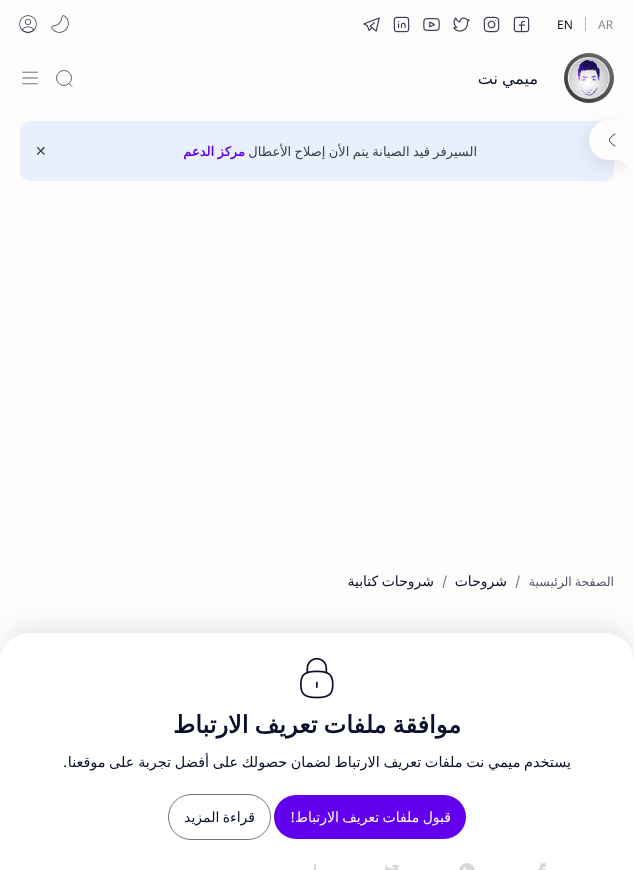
async function draw(canvas) {
  canvas.width = 634
  canvas.height = 870
  const ctx = canvas.getContext('2d')
  ctx.miterLimit = 4
  ctx.fontKerning = 'normal'
  async function loadImage(src) {
    const img = new Image()
    img.src = src
    await img.decode()
    return img
  }
  let gradient

  ctx.fillStyle = '#fffdfc'
  ctx.fillRect(0, 0, 634, 870)
  ctx.font = '12px Noto Sans'
  ctx.fillStyle = '#848794'
  ctx.fillText('AR', 598, 29)
  ctx.fillStyle = '#b8b7b7'
  ctx.fillRect(585, 17, 1, 14)
  ctx.fillStyle = '#08102b'
  ctx.fillText('EN', 557, 29)
  ctx.drawImage(await loadImage('image0.png'), 513, 16, 17, 17)
  ctx.drawImage(await loadImage('image1.png'), 483, 16, 17, 17)
  ctx.drawImage(await loadImage('image2.png'), 453, 17, 17, 15)
  ctx.drawImage(await loadImage('image3.png'), 423, 18, 17, 13)
  ctx.drawImage(await loadImage('image4.png'), 393, 16, 17, 17)
  ctx.drawImage(await loadImage('image5.png'), 363, 17, 17, 15)
  ctx.drawImage(await loadImage('image6.png'), 51, 15, 18, 18)
  ctx.drawImage(await loadImage('image7.png'), 19, 15, 18, 18)
  gradient = ctx.createLinearGradient(564, 103, 614, 53)
  gradient.addColorStop(0, '#363636')
  gradient.addColorStop(1, '#717171')
  ctx.fillStyle = gradient
  ctx.beginPath()
  ctx.arc(589, 78, 25, 0, 2 * Math.PI)
  ctx.fill()
  ctx.drawImage(await loadImage('image8.png'), 567, 57, 43, 42)
  ctx.wordSpacing = '-1px'
  ctx.direction = 'rtl'
  ctx.font = '16px DejaVu Sans'
  ctx.fillStyle = '#08102b'
  ctx.fillText('ميمي نت', 538, 84)
  ctx.beginPath()
  ctx.arc(64, 78, 7.5, 0, 2 * Math.PI)
  ctx.strokeStyle = '#393f55'
  ctx.lineWidth = 0.8
  ctx.stroke()
  ctx.beginPath()
  ctx.moveTo(69, 83.5)
  ctx.lineTo(72, 86.5)
  ctx.lineCap = 'round'
  ctx.lineJoin = 'round'
  ctx.stroke()
  ctx.drawImage(await loadImage('image9.png'), 22, 71, 16, 14)
  ctx.fillStyle = '#e8f0fe'
  ctx.beginPath()
  ctx.roundRect(20, 121, 594, 60, 10)
  ctx.fill()
  ctx.wordSpacing = '-0.75px'
  ctx.font = '13px DejaVu Sans'
  ctx.fillStyle = '#3c4043'
  ctx.fillText('السيرفر قيد الصيانة يتم الأن إصلاح الأعطال', 477, 156)
  ctx.font = 'bold 13px DejaVu Sans'
  ctx.fillStyle = '#6200ee'
  ctx.fillText('مركز الدعم', 245, 156)
  ctx.wordSpacing = '0px'
  ctx.direction = 'ltr'
  ctx.font = '14px DejaVu Sans'
  ctx.fillStyle = '#3c4043'
  ctx.fillText('✕', 35, 156)
  ctx.fillStyle = '#0000001a'
  ctx.filter = 'blur(10px)'
  ctx.beginPath()
  ctx.roundRect(589, 125, 45, 40, 20)
  ctx.fill()
  ctx.filter = 'none'
  ctx.fillStyle = '#fffdfc'
  ctx.beginPath()
  ctx.roundRect(589, 120, 45, 40, [20, 0, 0, 20])
  ctx.fill()
  ctx.beginPath()
  ctx.moveTo(615, 146)
  ctx.bezierCurveTo(607.5, 141.5, 607.5, 138.5, 615, 134)
  ctx.strokeStyle = '#08102b'
  ctx.stroke()
  ctx.beginPath()
  ctx.moveTo(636.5, 101.5)
  ctx.lineTo(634.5, 120)
  ctx.lineTo(615.5, 120.5)
  ctx.bezierCurveTo(626, 117.5, 633.5, 112, 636.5, 101.5)
  ctx.closePath()
  ctx.fill()
  ctx.beginPath()
  ctx.moveTo(615.5, 159.5)
  ctx.lineTo(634.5, 160)
  ctx.lineTo(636.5, 178.5)
  ctx.bezierCurveTo(632.5, 168.5, 626.5, 161.5, 615.5, 159.5)
  ctx.closePath()
  ctx.fill()
  ctx.wordSpacing = '-1px'
  ctx.direction = 'rtl'
  ctx.font = '12.5px DejaVu Sans'
  ctx.fillStyle = '#52576a'
  ctx.fillText('الصفحة الرئيسية', 614, 586)
  ctx.wordSpacing = '0px'
  ctx.direction = 'ltr'
  ctx.font = '12.5px Noto Sans'
  ctx.fillStyle = '#6b6f7f'
  ctx.fillText('/', 515, 586)
  ctx.direction = 'rtl'
  ctx.font = '14px DejaVu Sans'
  ctx.fillStyle = '#08102b'
  ctx.fillText('شروحات', 507, 586)
  ctx.direction = 'ltr'
  ctx.font = '12.5px Noto Sans'
  ctx.fillStyle = '#6b6f7f'
  ctx.fillText('/', 442, 586)
  ctx.wordSpacing = '-1px'
  ctx.direction = 'rtl'
  ctx.font = '14px DejaVu Sans'
  ctx.fillStyle = '#08102b'
  ctx.fillText('شروحات كتابية', 434, 586)
  ctx.fillStyle = '#f2f0ef'
  ctx.fillRect(20, 843, 594, 1)
  ctx.drawImage(await loadImage('image10.png'), 538, 863, 8, 7)
  ctx.drawImage(await loadImage('image11.png'), 459, 863, 16, 7)
  ctx.drawImage(await loadImage('image12.png'), 384, 864, 16, 6)
  ctx.drawImage(await loadImage('image13.png'), 309, 864, 12, 6)
  ctx.save()
  ctx.beginPath()
  ctx.moveTo(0, 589)
  ctx.lineTo(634, 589)
  ctx.lineTo(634, 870)
  ctx.lineTo(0, 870)
  ctx.closePath()
  ctx.moveTo(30, 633)
  ctx.lineTo(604, 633)
  ctx.bezierCurveTo(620.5, 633, 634, 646.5, 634, 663)
  ctx.lineTo(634, 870)
  ctx.lineTo(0, 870)
  ctx.lineTo(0, 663)
  ctx.bezierCurveTo(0, 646.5, 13.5, 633, 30, 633)
  ctx.closePath()
  ctx.clip('evenodd')
  ctx.fillStyle = '#0000001a'
  ctx.filter = 'blur(12.5px)'
  ctx.beginPath()
  ctx.roundRect(5, 628, 624, 227, 25)
  ctx.fill()
  ctx.filter = 'none'
  ctx.restore()
  ctx.fillStyle = '#ffffffcc'
  ctx.beginPath()
  ctx.roundRect(0, 633, 634, 237, [30, 30, 0, 0])
  ctx.fill()
  ctx.drawImage(await loadImage('image14.png'), 300, 657, 34, 42)
  ctx.wordSpacing = '-1.5px'
  ctx.font = 'bold 24px DejaVu Sans'
  ctx.fillStyle = '#08102b'
  ctx.fillText('موافقة ملفات تعريف الارتباط', 461, 733)
  ctx.wordSpacing = '-0.9px'
  ctx.font = '14.4px DejaVu Sans'
  ctx.fillText('يستخدم ميمي نت ملفات تعريف الارتباط لضمان حصولك على أفضل تجربة على موقعنا', 571, 767)
  ctx.wordSpacing = '0px'
  ctx.font = '14.4px Noto Sans'
  ctx.fillText('.', 67, 767)
  ctx.fillStyle = '#6200ee'
  ctx.beginPath()
  ctx.roundRect(274, 795, 192, 44, 22)
  ctx.fill()
  ctx.wordSpacing = '-1px'
  ctx.font = '14px DejaVu Sans'
  ctx.fillStyle = '#fffdfc'
  ctx.fillText('قبول ملفات تعريف الارتباط', 451, 822)
  ctx.wordSpacing = '0px'
  ctx.font = '14px Noto Sans'
  ctx.fillText('!', 295, 822)
  ctx.beginPath()
  ctx.roundRect(168.5, 794.5, 102, 45, 22.5)
  ctx.strokeStyle = '#767676'
  ctx.lineWidth = 1
  ctx.lineJoin = 'miter'
  ctx.stroke()
  ctx.wordSpacing = '-1px'
  ctx.font = '14px DejaVu Sans'
  ctx.fillStyle = '#08102b'
  ctx.fillText('قراءة المزيد', 255, 822)
}

draw(document.querySelector('canvas'))
